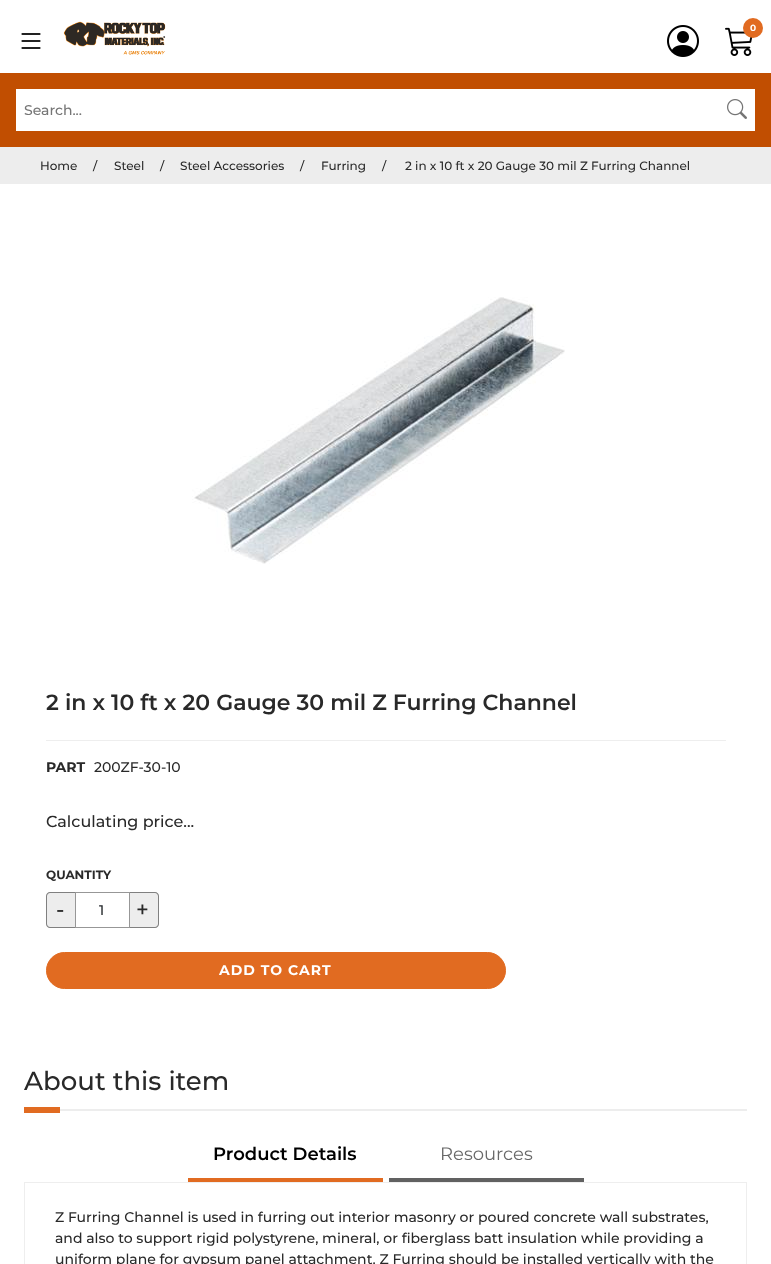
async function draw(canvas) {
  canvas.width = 771
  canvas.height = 1264
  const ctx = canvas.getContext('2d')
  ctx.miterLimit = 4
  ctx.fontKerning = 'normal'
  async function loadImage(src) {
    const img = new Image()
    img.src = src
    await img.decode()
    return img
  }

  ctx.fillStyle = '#fff'
  ctx.fillRect(0, 0, 771, 1264)
  ctx.drawImage(await loadImage('image0.png'), 21, 33, 20, 16)
  ctx.drawImage(await loadImage('image1.png'), 63, 21, 103, 34)
  ctx.drawImage(await loadImage('image2.png'), 667, 25, 32, 32)
  ctx.drawImage(await loadImage('image3.png'), 725, 27, 28, 29)
  ctx.fillStyle = '#e16b21'
  ctx.beginPath()
  ctx.arc(753, 28, 10, 0, 2 * Math.PI)
  ctx.fill()
  ctx.font = 'bold 9px Montserrat'
  ctx.fillStyle = '#fff'
  ctx.fillText('0', 750, 31)
  ctx.fillStyle = '#c14e01'
  ctx.fillRect(0, 73, 771, 74)
  ctx.fillStyle = '#fff'
  ctx.fillRect(16, 89, 739, 42)
  ctx.font = '500 14px Montserrat'
  ctx.fillStyle = '#757575'
  ctx.fillText('Search...', 24, 115)
  ctx.drawImage(await loadImage('image4.png'), 727, 99, 20, 20)
  ctx.fillStyle = '#ededed'
  ctx.fillRect(0, 147, 771, 37)
  ctx.font = '500 12px Montserrat'
  ctx.fillStyle = '#292929'
  ctx.fillText('Home', 40, 170)
  ctx.fillText('/', 93, 170)
  ctx.fillText('Steel', 114, 170)
  ctx.fillText('/', 160, 170)
  ctx.fillText('Steel Accessories', 180, 170)
  ctx.fillText('/', 300, 170)
  ctx.fillText('Furring', 321, 170)
  ctx.fillText('/', 382, 170)
  ctx.fillText('2 in x 10 ft x 20 Gauge 30 mil Z Furring Channel', 405, 170)
  ctx.drawImage(await loadImage('image5.png'), 192, 297, 373, 267)
  ctx.font = '600 22px Montserrat'
  ctx.fillText('2 in x 10 ft x 20 Gauge 30 mil Z Furring Channel', 46, 710)
  ctx.fillStyle = '#eee'
  ctx.fillRect(46, 740, 680, 1)
  ctx.font = 'bold 14px Montserrat'
  ctx.fillStyle = '#292929'
  ctx.fillText('PART', 46, 772)
  ctx.font = '500 14px Montserrat'
  ctx.fillText('200ZF-30-10', 94, 772)
  ctx.font = '500 16px Montserrat'
  ctx.fillText('Calculating price...', 46, 827)
  ctx.font = 'bold 12px Montserrat'
  ctx.fillText('QUANTITY', 46, 879)
  ctx.fillStyle = '#ededed'
  ctx.beginPath()
  ctx.roundRect(46, 892, 30, 36, [4, 0, 0, 4])
  ctx.fill()
  ctx.fillStyle = '#808080'
  ctx.beginPath()
  ctx.moveTo(50, 892)
  ctx.lineTo(76, 892)
  ctx.lineTo(76, 928)
  ctx.lineTo(50, 928)
  ctx.bezierCurveTo(48, 928, 46, 926, 46, 924)
  ctx.lineTo(46, 896)
  ctx.bezierCurveTo(46, 894, 48, 892, 50, 892)
  ctx.closePath()
  ctx.moveTo(50, 893)
  ctx.lineTo(76, 893)
  ctx.lineTo(76, 927)
  ctx.lineTo(50, 927)
  ctx.bezierCurveTo(48.5, 927, 47, 925.5, 47, 924)
  ctx.lineTo(47, 896)
  ctx.bezierCurveTo(47, 894.5, 48.5, 893, 50, 893)
  ctx.closePath()
  ctx.fill('evenodd')
  ctx.letterSpacing = '1px'
  ctx.font = '500 22px Montserrat'
  ctx.fillStyle = '#292929'
  ctx.fillText('-', 56, 917)
  ctx.fillStyle = '#ededed'
  ctx.beginPath()
  ctx.roundRect(129, 892, 30, 36, [0, 4, 4, 0])
  ctx.fill()
  ctx.fillStyle = '#808080'
  ctx.beginPath()
  ctx.moveTo(129, 892)
  ctx.lineTo(155, 892)
  ctx.bezierCurveTo(157, 892, 159, 894, 159, 896)
  ctx.lineTo(159, 924)
  ctx.bezierCurveTo(159, 926, 157, 928, 155, 928)
  ctx.lineTo(129, 928)
  ctx.closePath()
  ctx.moveTo(129, 893)
  ctx.lineTo(155, 893)
  ctx.bezierCurveTo(156.5, 893, 158, 894.5, 158, 896)
  ctx.lineTo(158, 924)
  ctx.bezierCurveTo(158, 925.5, 156.5, 927, 155, 927)
  ctx.lineTo(129, 927)
  ctx.closePath()
  ctx.fill('evenodd')
  ctx.strokeStyle = '#979797'
  ctx.strokeRect(75.5, 892.5, 54, 35)
  ctx.letterSpacing = '0px'
  ctx.font = '500 14px Montserrat'
  ctx.fillStyle = '#212529'
  ctx.fillText('1', 99, 915)
  ctx.letterSpacing = '1px'
  ctx.font = '500 22px Montserrat'
  ctx.fillStyle = '#292929'
  ctx.fillText('+', 136, 917)
  ctx.fillStyle = '#e16b21'
  ctx.beginPath()
  ctx.roundRect(46.5, 952.5, 459, 36, 18)
  ctx.fill()
  ctx.strokeStyle = '#e16b21'
  ctx.stroke()
  ctx.font = 'bold 14px Montserrat'
  ctx.fillStyle = '#fff'
  ctx.fillText('ADD TO CART', 219, 975)
  ctx.fillStyle = '#ededed'
  ctx.fillRect(60, 1109, 687, 2)
  ctx.letterSpacing = '0px'
  ctx.font = '500 26px Montserrat'
  ctx.fillStyle = '#292929'
  ctx.fillText('About this item', 24, 1090)
  ctx.fillStyle = '#e16b21'
  ctx.fillRect(24, 1107, 36, 6)
  ctx.fillRect(188, 1178, 195, 4)
  ctx.font = '600 18px Montserrat'
  ctx.fillStyle = '#000'
  ctx.fillText('Product Details', 213, 1160)
  ctx.fillStyle = '#616161'
  ctx.fillRect(389, 1178, 195, 4)
  ctx.font = '18px Montserrat'
  ctx.fillStyle = '#686868'
  ctx.fillText('Resources', 440, 1160)
  ctx.strokeStyle = '#eee'
  ctx.strokeRect(24.5, 1182.5, 722, 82)
  ctx.font = '500 14px Montserrat'
  ctx.fillStyle = '#292929'
  ctx.fillText('Z Furring Channel is used in furring out interior masonry or poured concrete wall substrates,', 55, 1222)
  ctx.fillText('and also to support rigid polystyrene, mineral, or fiberglass batt insulation while providing a', 55, 1243)
  ctx.fillText('uniform plane for gypsum panel attachment. Z Furring should be installed vertically with the', 55, 1264)
}

draw(document.querySelector('canvas'))
